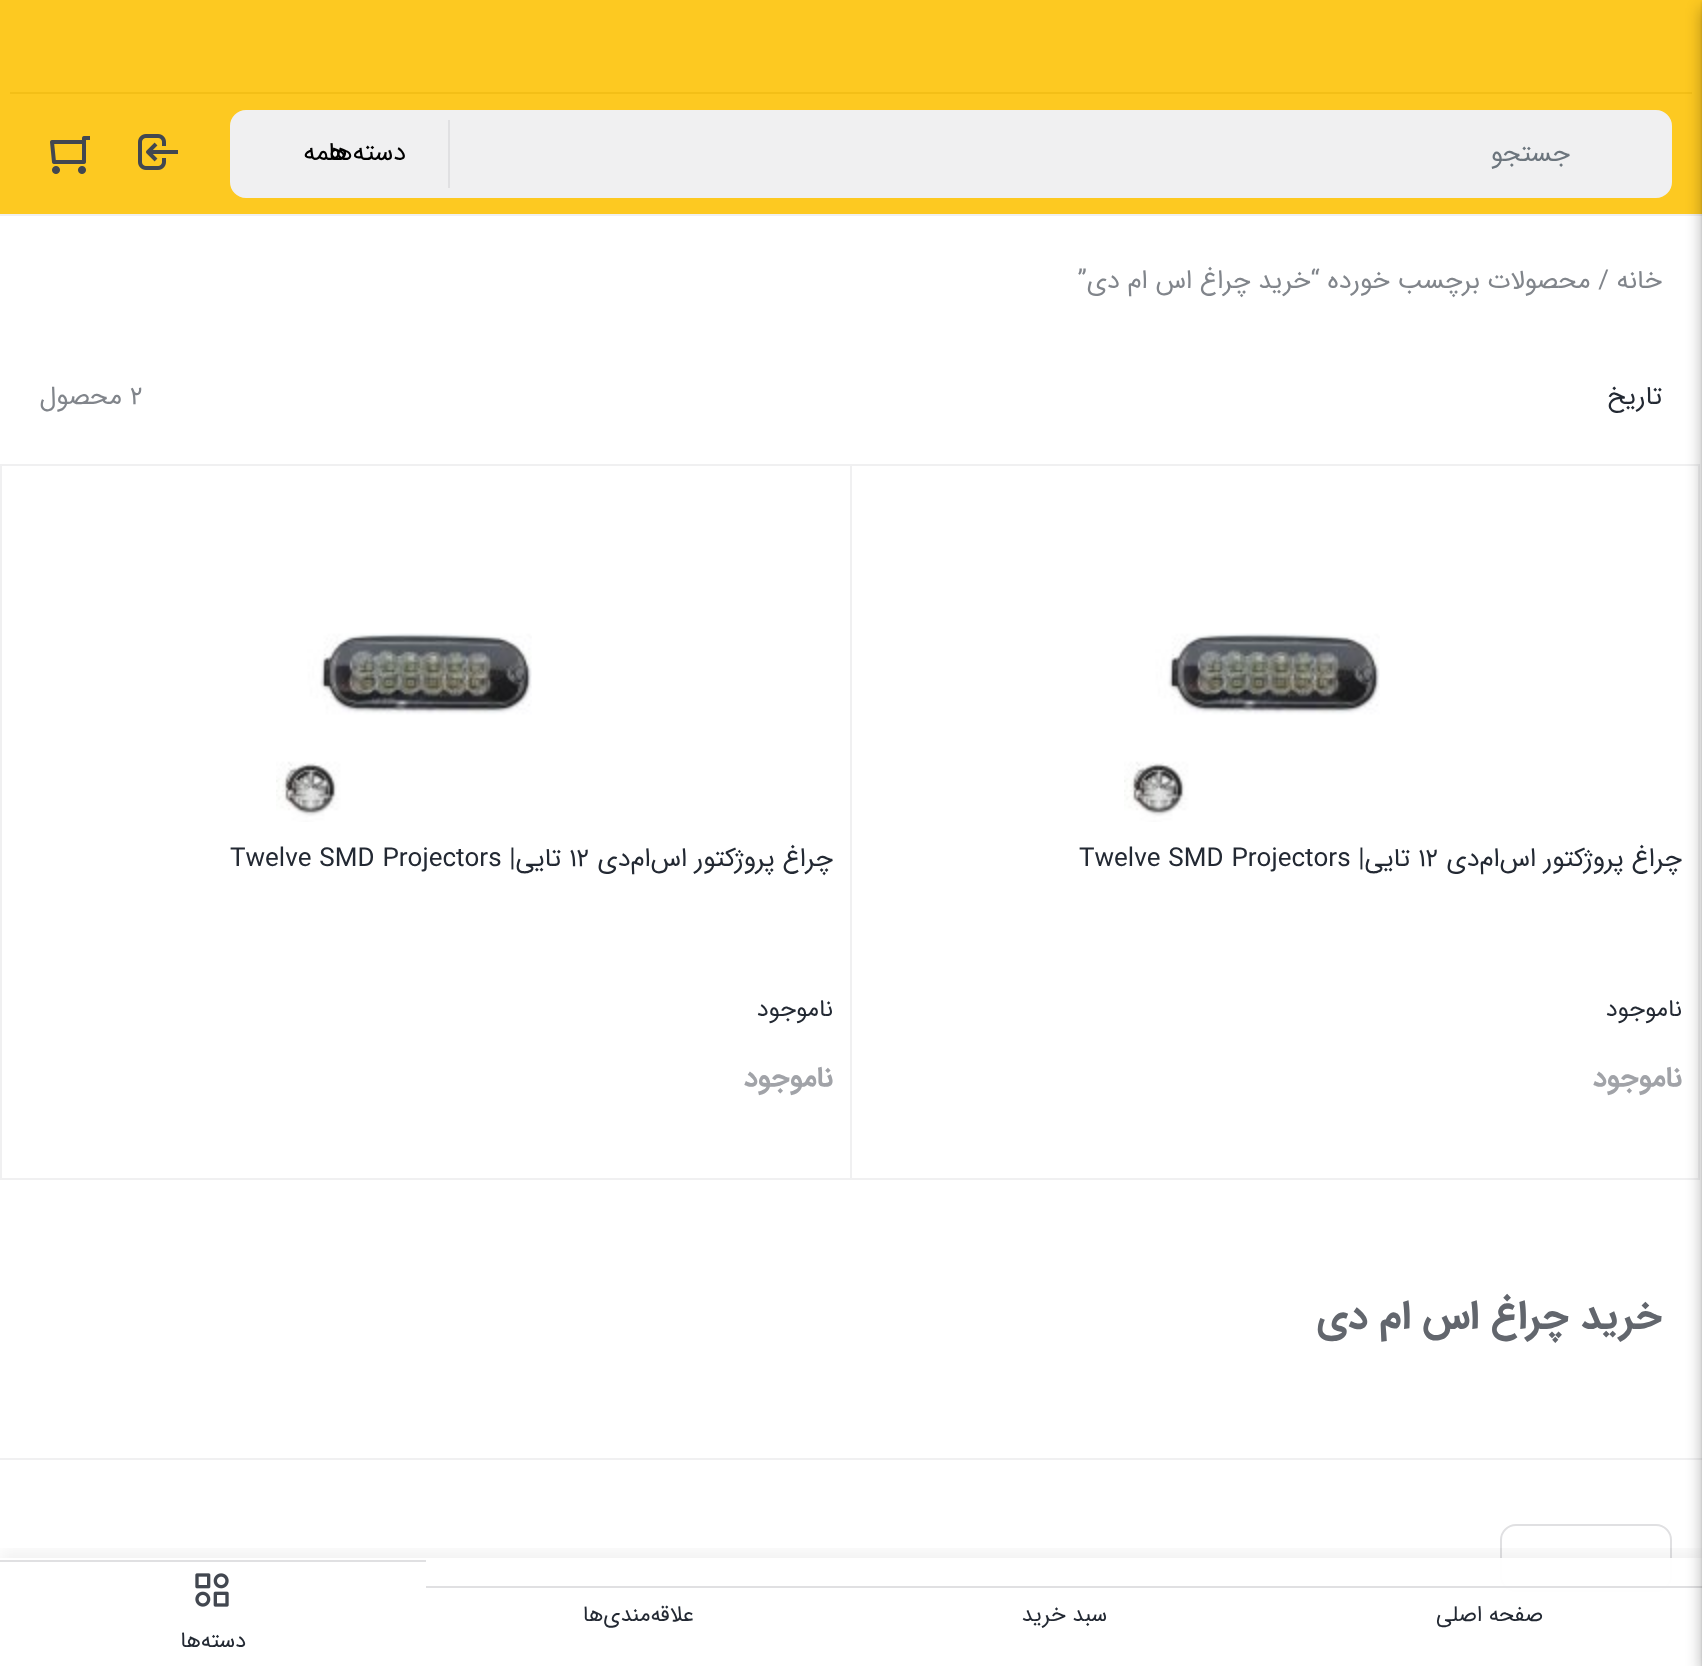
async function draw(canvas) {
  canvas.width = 1702
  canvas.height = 1666
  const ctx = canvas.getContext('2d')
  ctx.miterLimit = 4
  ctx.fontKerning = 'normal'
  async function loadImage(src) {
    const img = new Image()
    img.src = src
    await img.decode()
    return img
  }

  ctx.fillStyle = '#fff'
  ctx.fillRect(0, 0, 1702, 1666)
  ctx.fillStyle = '#fdc921'
  ctx.fillRect(0, 0, 1702, 214)
  ctx.fillStyle = '#f0f0f1'
  ctx.fillRect(0, 214, 1702, 2)
  ctx.fillStyle = '#f3bf17'
  ctx.fillRect(10, 92, 1682, 2)
  ctx.strokeStyle = '#f0f0f1'
  ctx.lineWidth = 2
  ctx.strokeRect(851, 465, 848, 714)
  ctx.fillStyle = '#f0f0f1'
  ctx.fillRect(0, 1458, 1702, 2)
  ctx.beginPath()
  ctx.roundRect(1501, 1525, 170, 66, 15)
  ctx.strokeStyle = '#e0e0e2'
  ctx.stroke()
  ctx.save()
  ctx.beginPath()
  ctx.rect(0, 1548, 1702, 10)
  ctx.clip()
  ctx.fillStyle = '#0000000d'
  ctx.filter = 'blur(8px)'
  ctx.beginPath()
  ctx.rect(0, 1550, 1702, 108)
  ctx.fill()
  ctx.filter = 'none'
  ctx.restore()
  ctx.fillStyle = '#fffffff2'
  ctx.fillRect(1500, 1558, 172, 34)
  ctx.fillStyle = '#e0e0e2'
  ctx.fillRect(426, 1586, 1276, 2)
  ctx.fillStyle = '#0000004d'
  ctx.filter = 'blur(8px)'
  ctx.beginPath()
  ctx.rect(1702, 8, 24, 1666)
  ctx.fill()
  ctx.filter = 'none'
  ctx.fillStyle = '#00000024'
  ctx.filter = 'blur(1px)'
  ctx.beginPath()
  ctx.rect(1702, 2, 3, 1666)
  ctx.fill()
  ctx.filter = 'none'
  ctx.drawImage(await loadImage('image0.png'), 50, 136, 40, 38)
  ctx.drawImage(await loadImage('image1.png'), 138, 134, 40, 36)
  ctx.fillStyle = '#f0f0f1'
  ctx.beginPath()
  ctx.roundRect(231, 111, 1440, 86, 15)
  ctx.fill()
  ctx.strokeStyle = '#f0f0f1'
  ctx.stroke()
  ctx.direction = 'rtl'
  ctx.font = '26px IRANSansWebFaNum'
  ctx.fillStyle = '#6c757d'
  ctx.fillText('جستجو', 1570, 161)
  ctx.fillStyle = '#e0e0e2'
  ctx.fillRect(448, 120, 2, 68)
  ctx.fillStyle = '#000'
  ctx.fillText('همه', 346, 160)
  ctx.fillText('دسته‌ها', 406, 160)
  ctx.fillStyle = '#81858b'
  ctx.fillText('خانه', 1662, 288)
  ctx.fillText('/ محصولات برچسب خورده “خرید چراغ اس ام دی”', 1609, 288)
  ctx.fillStyle = '#232933'
  ctx.fillText('تاریخ', 1662, 404)
  ctx.direction = 'ltr'
  ctx.fillStyle = '#81858b'
  ctx.fillText('2', 130, 404)
  ctx.direction = 'rtl'
  ctx.fillText('محصول', 122, 404)
  ctx.drawImage(await loadImage('image2.png'), 1124, 633, 256, 189)
  ctx.fillStyle = '#232933'
  ctx.fillText('چراغ پروژکتور اس‌ام‌دی', 1682, 866)
  ctx.direction = 'ltr'
  ctx.fillText('12', 1418, 866)
  ctx.direction = 'rtl'
  ctx.fillText('تایی|', 1410, 866)
  ctx.direction = 'ltr'
  ctx.fillText('Twelve SMD Projectors', 1079, 866)
  ctx.direction = 'rtl'
  ctx.font = '24px IRANSansWebFaNum'
  ctx.fillText('ناموجود', 1682, 1016)
  ctx.font = 'bold 28px IRANSansWebFaNum'
  ctx.fillStyle = '#a1a3a8'
  ctx.fillText('ناموجود', 1682, 1086)
  ctx.strokeRect(1, 465, 850, 714)
  ctx.drawImage(await loadImage('image2.png'), 276, 633, 256, 189)
  ctx.font = '26px IRANSansWebFaNum'
  ctx.fillStyle = '#232933'
  ctx.fillText('چراغ پروژکتور اس‌ام‌دی', 833, 866)
  ctx.direction = 'ltr'
  ctx.fillText('12', 569, 866)
  ctx.direction = 'rtl'
  ctx.fillText('تایی|', 561, 866)
  ctx.direction = 'ltr'
  ctx.fillText('Twelve SMD Projectors', 230, 866)
  ctx.direction = 'rtl'
  ctx.font = '24px IRANSansWebFaNum'
  ctx.fillText('ناموجود', 833, 1016)
  ctx.font = 'bold 28px IRANSansWebFaNum'
  ctx.fillStyle = '#a1a3a8'
  ctx.fillText('ناموجود', 833, 1086)
  ctx.font = 'bold 40px IRANSansWebFaNum'
  ctx.fillStyle = '#62666d'
  ctx.fillText('خرید چراغ اس ام دی', 1662, 1328)
  ctx.font = '22px IRANSansWebFaNum'
  ctx.fillStyle = '#232933'
  ctx.fillText('صفحه اصلی', 1543, 1621)
  ctx.fillText('سبد خرید', 1107, 1621)
  ctx.fillText('علاقه‌مندی‌ها', 694, 1621)
  ctx.fillStyle = '#e0e0e2'
  ctx.fillRect(0, 1560, 426, 2)
  ctx.drawImage(await loadImage('image3.png'), 195, 1573, 34, 34)
  ctx.fillStyle = '#232933'
  ctx.fillText('دسته‌ها', 246, 1647)
}

draw(document.querySelector('canvas'))
